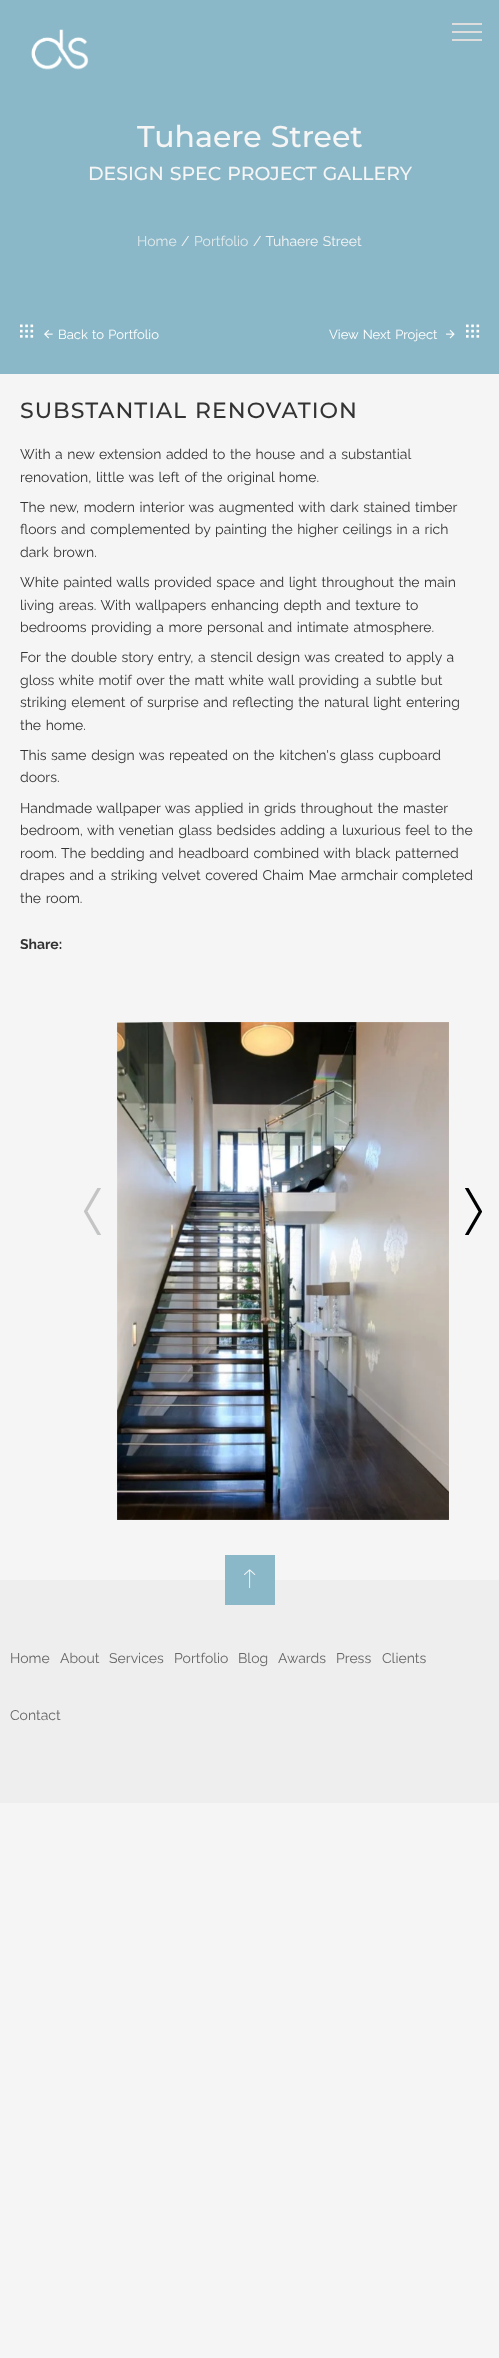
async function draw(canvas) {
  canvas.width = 499
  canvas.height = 2358
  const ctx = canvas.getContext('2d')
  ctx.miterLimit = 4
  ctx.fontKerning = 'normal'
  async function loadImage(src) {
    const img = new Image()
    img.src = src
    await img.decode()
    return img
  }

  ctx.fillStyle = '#f5f5f5'
  ctx.fillRect(0, 0, 499, 2358)
  ctx.fillStyle = '#8bb8c8'
  ctx.fillRect(0, 0, 499, 374)
  ctx.drawImage(await loadImage('image0.png'), 31, 29, 58, 41)
  ctx.fillStyle = '#ddd'
  ctx.fillRect(452, 31, 30, 2)
  ctx.fillRect(452, 23, 30, 2)
  ctx.fillRect(452, 39, 30, 2)
  ctx.wordSpacing = '1px'
  ctx.font = '500 30px Montserrat'
  ctx.fillStyle = '#f5f5f5'
  ctx.fillText('Tuhaere Street', 137, 147)
  ctx.font = '500 18.9px Montserrat'
  ctx.fillText('DESIGN SPEC PROJECT GALLERY', 88, 180)
  ctx.wordSpacing = '0px'
  ctx.font = '14px Raleway'
  ctx.fillStyle = '#e0e9ec'
  ctx.fillText('Home', 137, 246)
  ctx.fillStyle = '#f5f5f5'
  ctx.fillText('/', 181, 246)
  ctx.fillStyle = '#e0e9ec'
  ctx.fillText('Portfolio', 194, 246)
  ctx.wordSpacing = '1px'
  ctx.fillStyle = '#f5f5f5'
  ctx.fillText('/ Tuhaere Street', 253, 246)
  ctx.drawImage(await loadImage('image1.png'), 20, 324, 14, 14)
  ctx.drawImage(await loadImage('image2.png'), 44, 329, 9, 10)
  ctx.font = '13px Raleway'
  ctx.fillStyle = '#fff'
  ctx.fillText('Back to Portfolio', 58, 339)
  ctx.fillText('View Next Project', 329, 339)
  ctx.drawImage(await loadImage('image3.png'), 446, 329, 9, 10)
  ctx.drawImage(await loadImage('image1.png'), 466, 324, 14, 14)
  ctx.letterSpacing = '1px'
  ctx.font = '500 22px Montserrat'
  ctx.fillStyle = '#333'
  ctx.fillText('SUBSTANTIAL RENOVATION', 20, 418)
  ctx.letterSpacing = '0px'
  ctx.font = '14px Raleway'
  ctx.fillText('With a new extension added to the house and a substantial', 20, 459)
  ctx.fillText('renovation, little was left of the original home.', 20, 482)
  ctx.fillText('The new, modern interior was augmented with dark stained timber', 20, 512)
  ctx.fillText('floors and complemented by painting the higher ceilings in a rich', 20, 534)
  ctx.fillText('dark brown.', 20, 557)
  ctx.fillText('White painted walls provided space and light throughout the main', 20, 587)
  ctx.fillText('living areas. With wallpapers enhancing depth and texture to', 20, 610)
  ctx.fillText('bedrooms providing a more personal and intimate atmosphere.', 20, 632)
  ctx.fillText('For the double story entry, a stencil design was created to apply a', 20, 662)
  ctx.fillText('gloss white motif over the matt white wall providing a subtle but', 20, 685)
  ctx.fillText('striking element of surprise and reflecting the natural light entering', 20, 707)
  ctx.fillText('the home.', 20, 730)
  ctx.fillText('This same design was repeated on the kitchen\'s glass cupboard', 20, 760)
  ctx.wordSpacing = '0px'
  ctx.fillText('doors.', 20, 782)
  ctx.wordSpacing = '1px'
  ctx.fillText('Handmade wallpaper was applied in grids throughout the master', 20, 813)
  ctx.fillText('bedroom, with venetian glass bedsides adding a luxurious feel to the', 20, 835)
  ctx.fillText('room. The bedding and headboard combined with black patterned', 20, 858)
  ctx.fillText('drapes and a striking velvet covered Chaim Mae armchair completed', 20, 880)
  ctx.fillText('the room.', 20, 903)
  ctx.wordSpacing = '0px'
  ctx.font = 'bold 14px Raleway'
  ctx.fillText('Share:', 20, 949)
  ctx.drawImage(await loadImage('image4.png'), 117, 1022, 332, 498)
  ctx.drawImage(await loadImage('image5.png'), 84, 1188, 17, 47)
  ctx.drawImage(await loadImage('image6.png'), 465, 1188, 17, 47)
  ctx.fillStyle = '#eee'
  ctx.fillRect(0, 1580, 499, 223)
  ctx.fillStyle = '#8bb8c8'
  ctx.fillRect(225, 1555, 50, 50)
  ctx.drawImage(await loadImage('image7.png'), 244, 1569, 12, 20)
  ctx.font = '14px Raleway'
  ctx.fillStyle = '#666'
  ctx.fillText('Home', 10, 1663)
  ctx.fillText('About', 60, 1663)
  ctx.fillText('Services', 109, 1663)
  ctx.fillText('Portfolio', 174, 1663)
  ctx.fillText('Blog', 238, 1663)
  ctx.fillText('Awards', 278, 1663)
  ctx.fillText('Press', 336, 1663)
  ctx.fillText('Clients', 382, 1663)
  ctx.fillText('Contact', 10, 1720)
}

draw(document.querySelector('canvas'))
